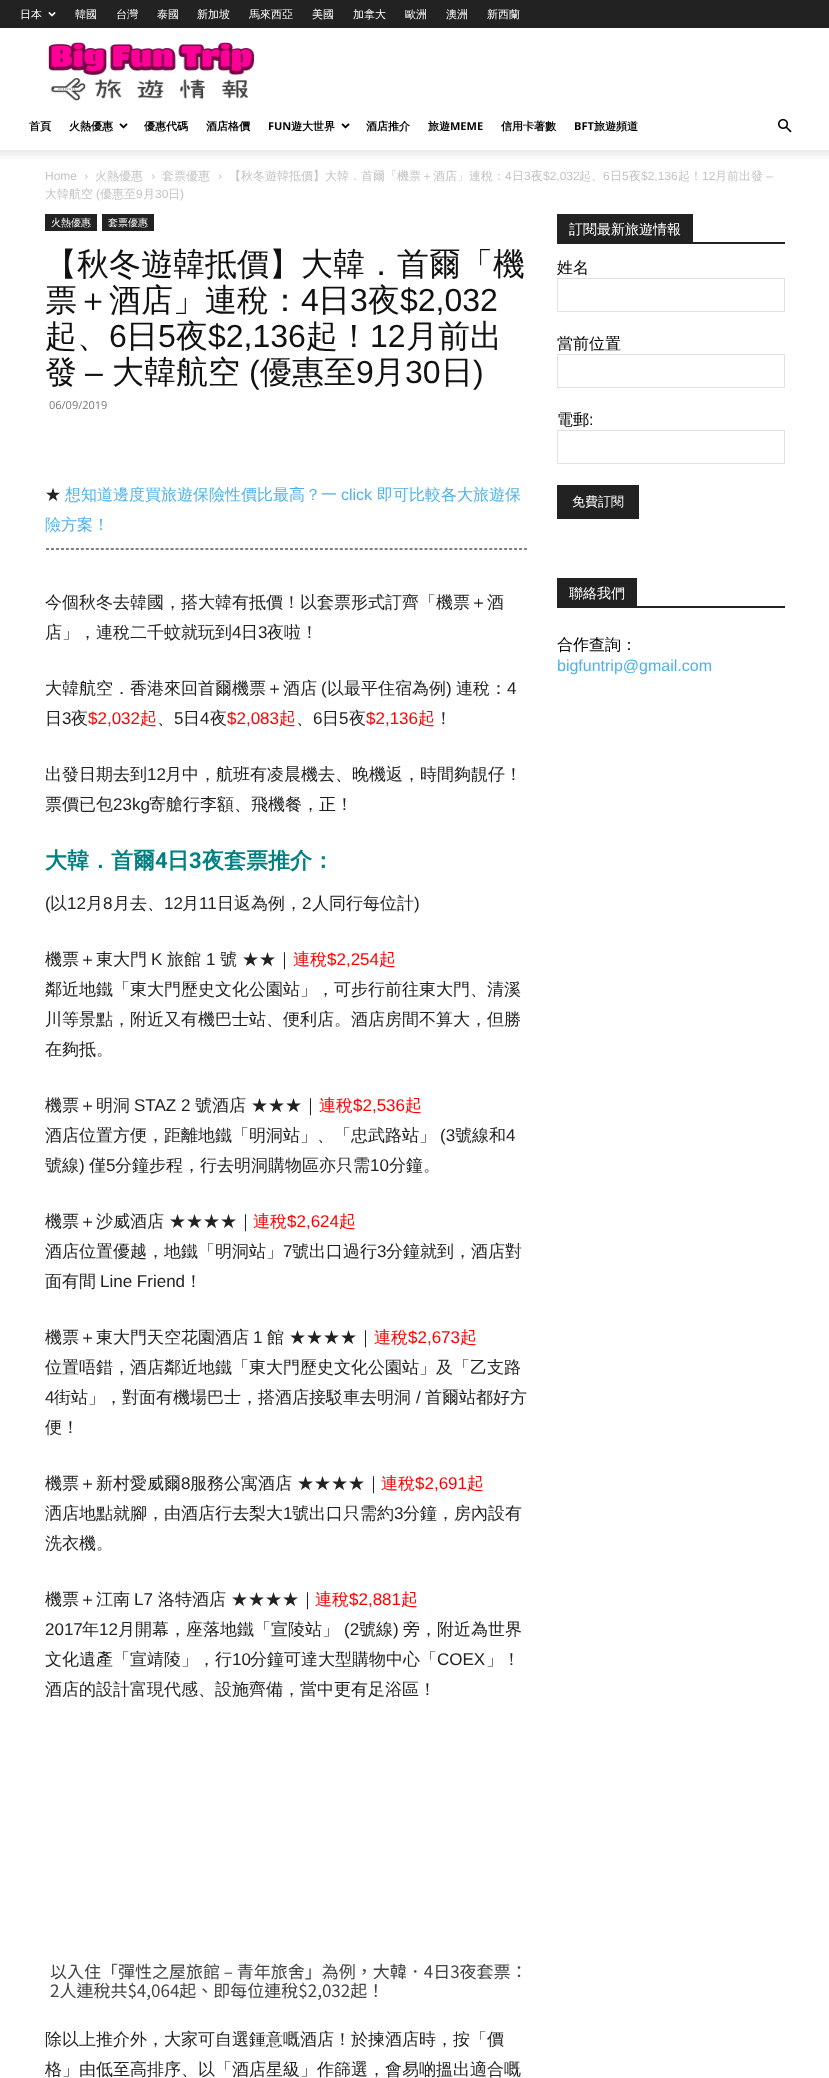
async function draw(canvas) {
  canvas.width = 829
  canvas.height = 2078
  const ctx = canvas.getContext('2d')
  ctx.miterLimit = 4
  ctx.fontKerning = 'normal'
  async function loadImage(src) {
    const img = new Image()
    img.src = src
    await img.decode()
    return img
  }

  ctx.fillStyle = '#fff'
  ctx.fillRect(0, 0, 829, 2078)
  ctx.fillStyle = '#222'
  ctx.fillRect(0, 0, 829, 28)
  ctx.font = '500 11px WenQuanYi Zen Hei'
  ctx.fillStyle = '#fff'
  ctx.fillText('日本', 20, 18)
  ctx.drawImage(await loadImage('image0.png'), 48, 12, 8, 5)
  ctx.fillText('韓國', 75, 18)
  ctx.fillText('台灣', 116, 18)
  ctx.fillText('泰國', 157, 18)
  ctx.fillText('新加坡', 197, 18)
  ctx.fillText('馬來西亞', 249, 18)
  ctx.fillText('美國', 312, 18)
  ctx.fillText('加拿大', 353, 18)
  ctx.fillText('歐洲', 405, 18)
  ctx.fillText('澳洲', 446, 18)
  ctx.fillText('新西蘭', 487, 18)
  ctx.drawImage(await loadImage('image1.png'), 48, 42, 207, 59)
  ctx.font = 'bold 11px WenQuanYi Zen Hei'
  ctx.fillStyle = '#000'
  ctx.fillText('首頁', 29, 130)
  ctx.fillText('火熱優惠', 69, 130)
  ctx.drawImage(await loadImage('image2.png'), 119, 123, 9, 6)
  ctx.fillText('優惠代碼', 144, 130)
  ctx.fillText('酒店格價', 206, 130)
  ctx.font = 'bold 11px Open Sans'
  ctx.fillText('FUN', 268, 130)
  ctx.font = 'bold 11px WenQuanYi Zen Hei'
  ctx.fillText('遊大世界', 291, 130)
  ctx.drawImage(await loadImage('image2.png'), 341, 123, 9, 6)
  ctx.fillText('酒店推介', 366, 130)
  ctx.fillText('旅遊', 428, 130)
  ctx.font = 'bold 11px Open Sans'
  ctx.fillText('MEME', 450, 130)
  ctx.font = 'bold 11px WenQuanYi Zen Hei'
  ctx.fillText('信用卡著數', 501, 130)
  ctx.font = 'bold 11px Open Sans'
  ctx.fillText('BFT', 574, 130)
  ctx.font = 'bold 11px WenQuanYi Zen Hei'
  ctx.fillText('旅遊頻道', 594, 130)
  ctx.drawImage(await loadImage('image3.png'), 778, 118, 14, 15)
  ctx.drawImage(await loadImage('image4.png'), 0, 150, 829, 9)
  ctx.font = '12px Liberation Sans'
  ctx.fillStyle = '#c3c3c3'
  ctx.fillText('Home', 45, 180)
  ctx.drawImage(await loadImage('image5.png'), 85, 174, 3, 5)
  ctx.font = '500 12px WenQuanYi Zen Hei'
  ctx.fillText('火熱優惠', 95, 180)
  ctx.drawImage(await loadImage('image5.png'), 152, 174, 3, 5)
  ctx.fillText('套票優惠', 162, 180)
  ctx.drawImage(await loadImage('image5.png'), 219, 174, 3, 5)
  ctx.fillText('【秋冬遊韓抵價】大韓．首爾「機票＋酒店」連稅：', 229, 180)
  ctx.font = '12px Liberation Sans'
  ctx.fillText('4', 505, 180)
  ctx.font = '500 12px WenQuanYi Zen Hei'
  ctx.fillText('日', 512, 180)
  ctx.font = '12px Liberation Sans'
  ctx.fillText('3', 524, 180)
  ctx.font = '500 12px WenQuanYi Zen Hei'
  ctx.fillText('夜', 531, 180)
  ctx.font = '12px Liberation Sans'
  ctx.fillText('$2,032', 543, 180)
  ctx.font = '500 12px WenQuanYi Zen Hei'
  ctx.fillText('起、', 579, 180)
  ctx.font = '12px Liberation Sans'
  ctx.fillText('6', 603, 180)
  ctx.font = '500 12px WenQuanYi Zen Hei'
  ctx.fillText('日', 610, 180)
  ctx.font = '12px Liberation Sans'
  ctx.fillText('5', 622, 180)
  ctx.font = '500 12px WenQuanYi Zen Hei'
  ctx.fillText('夜', 629, 180)
  ctx.font = '12px Liberation Sans'
  ctx.fillText('$2,136', 641, 180)
  ctx.font = '500 12px WenQuanYi Zen Hei'
  ctx.fillText('起！', 678, 180)
  ctx.font = '12px Liberation Sans'
  ctx.fillText('12', 702, 180)
  ctx.font = '500 12px WenQuanYi Zen Hei'
  ctx.fillText('月前出發', 715, 180)
  ctx.font = '12px Liberation Sans'
  ctx.fillText('–', 766, 180)
  ctx.font = '500 12px WenQuanYi Zen Hei'
  ctx.fillText('大韓航空', 45, 198)
  ctx.font = '12px Liberation Sans'
  ctx.fillText('(', 96, 198)
  ctx.font = '500 12px WenQuanYi Zen Hei'
  ctx.fillText('優惠至', 100, 198)
  ctx.font = '12px Liberation Sans'
  ctx.fillText('9', 136, 198)
  ctx.font = '500 12px WenQuanYi Zen Hei'
  ctx.fillText('月', 143, 198)
  ctx.font = '12px Liberation Sans'
  ctx.fillText('30', 155, 198)
  ctx.font = '500 12px WenQuanYi Zen Hei'
  ctx.fillText('日', 168, 198)
  ctx.font = '12px Liberation Sans'
  ctx.fillText(')', 180, 198)
  ctx.fillStyle = '#222'
  ctx.fillRect(45, 214, 52, 17)
  ctx.font = '500 10px WenQuanYi Zen Hei'
  ctx.fillStyle = '#fff'
  ctx.fillText('火熱優惠', 51, 226)
  ctx.fillStyle = '#222'
  ctx.fillRect(102, 214, 52, 17)
  ctx.fillStyle = '#fff'
  ctx.fillText('套票優惠', 108, 226)
  ctx.font = '500 32px WenQuanYi Zen Hei'
  ctx.fillStyle = '#111'
  ctx.fillText('【秋冬遊韓抵價】大韓．首爾「機', 45, 275)
  ctx.fillText('票＋酒店」連稅：', 45, 311)
  ctx.font = '32px Liberation Sans'
  ctx.fillText('4', 301, 311)
  ctx.font = '500 32px WenQuanYi Zen Hei'
  ctx.fillText('日', 318, 311)
  ctx.font = '32px Liberation Sans'
  ctx.fillText('3', 350, 311)
  ctx.font = '500 32px WenQuanYi Zen Hei'
  ctx.fillText('夜', 368, 311)
  ctx.font = '32px Liberation Sans'
  ctx.fillText('$2,032', 400, 311)
  ctx.font = '500 32px WenQuanYi Zen Hei'
  ctx.fillText('起、', 45, 347)
  ctx.font = '32px Liberation Sans'
  ctx.fillText('6', 109, 347)
  ctx.font = '500 32px WenQuanYi Zen Hei'
  ctx.fillText('日', 126, 347)
  ctx.font = '32px Liberation Sans'
  ctx.fillText('5', 158, 347)
  ctx.font = '500 32px WenQuanYi Zen Hei'
  ctx.fillText('夜', 176, 347)
  ctx.font = '32px Liberation Sans'
  ctx.fillText('$2,136', 208, 347)
  ctx.font = '500 32px WenQuanYi Zen Hei'
  ctx.fillText('起！', 306, 347)
  ctx.font = '32px Liberation Sans'
  ctx.fillText('12', 370, 347)
  ctx.font = '500 32px WenQuanYi Zen Hei'
  ctx.fillText('月前出', 406, 347)
  ctx.fillText('發', 45, 383)
  ctx.font = '32px Liberation Sans'
  ctx.fillText('–', 85, 383)
  ctx.font = '500 32px WenQuanYi Zen Hei'
  ctx.fillText('大韓航空', 112, 383)
  ctx.font = '32px Liberation Sans'
  ctx.fillText('(', 249, 383)
  ctx.font = '500 32px WenQuanYi Zen Hei'
  ctx.fillText('優惠至', 260, 383)
  ctx.font = '32px Liberation Sans'
  ctx.fillText('9', 356, 383)
  ctx.font = '500 32px WenQuanYi Zen Hei'
  ctx.fillText('月', 373, 383)
  ctx.font = '32px Liberation Sans'
  ctx.fillText('30', 405, 383)
  ctx.font = '500 32px WenQuanYi Zen Hei'
  ctx.fillText('日', 441, 383)
  ctx.font = '32px Liberation Sans'
  ctx.fillText(')', 473, 383)
  ctx.font = '11px Open Sans'
  ctx.fillStyle = '#767676'
  ctx.fillText('06/09/2019', 49, 409)
  ctx.font = '500 16px WenQuanYi Zen Hei'
  ctx.fillStyle = '#222'
  ctx.fillText('★', 45, 500)
  ctx.fillStyle = '#4db2ec'
  ctx.fillText('想知道邊度買旅遊保險性價比最高？一', 65, 500)
  ctx.font = '16px Liberation Sans'
  ctx.fillText('click', 341, 500)
  ctx.font = '500 16px WenQuanYi Zen Hei'
  ctx.fillText('即可比較各大旅遊保', 377, 500)
  ctx.fillText('險方案！', 45, 530)
  ctx.beginPath()
  ctx.moveTo(46, 548.5)
  ctx.lineTo(527, 548.5)
  ctx.strokeStyle = '#808080'
  ctx.setLineDash([3, 1.98])
  ctx.stroke()
  ctx.fillStyle = '#808080'
  ctx.fillRect(526, 548, 1, 2)
  ctx.beginPath()
  ctx.moveTo(46, 549.5)
  ctx.lineTo(527, 549.5)
  ctx.stroke()
  ctx.font = '500 17px WenQuanYi Zen Hei'
  ctx.fillStyle = '#222'
  ctx.fillText('今個秋冬去韓國，搭大韓有抵價！以套票形式訂齊「機票＋酒', 45, 608)
  ctx.fillText('店」，連稅二千蚊就玩到', 45, 638)
  ctx.font = '17px Liberation Sans'
  ctx.fillText('4', 232, 638)
  ctx.font = '500 17px WenQuanYi Zen Hei'
  ctx.fillText('日', 241, 638)
  ctx.font = '17px Liberation Sans'
  ctx.fillText('3', 258, 638)
  ctx.font = '500 17px WenQuanYi Zen Hei'
  ctx.fillText('夜啦！', 267, 638)
  ctx.fillText('大韓航空．香港來回首爾機票＋酒店', 45, 694)
  ctx.font = '17px Liberation Sans'
  ctx.fillText('(', 321, 694)
  ctx.font = '500 17px WenQuanYi Zen Hei'
  ctx.fillText('以最平住宿為例', 327, 694)
  ctx.font = '17px Liberation Sans'
  ctx.fillText(')', 446, 694)
  ctx.font = '500 17px WenQuanYi Zen Hei'
  ctx.fillText('連稅：', 456, 694)
  ctx.font = '17px Liberation Sans'
  ctx.fillText('4', 507, 694)
  ctx.font = '500 17px WenQuanYi Zen Hei'
  ctx.fillText('日', 45, 724)
  ctx.font = '17px Liberation Sans'
  ctx.fillText('3', 62, 724)
  ctx.font = '500 17px WenQuanYi Zen Hei'
  ctx.fillText('夜', 71, 724)
  ctx.font = '17px Liberation Sans'
  ctx.fillStyle = '#f00'
  ctx.fillText('$2,032', 88, 724)
  ctx.font = '500 17px WenQuanYi Zen Hei'
  ctx.fillText('起', 140, 724)
  ctx.font = '17px Liberation Sans'
  ctx.fillStyle = '#222'
  ctx.fillText('5', 174, 724)
  ctx.font = '500 17px WenQuanYi Zen Hei'
  ctx.fillText('日', 183, 724)
  ctx.font = '17px Liberation Sans'
  ctx.fillText('4', 200, 724)
  ctx.font = '500 17px WenQuanYi Zen Hei'
  ctx.fillText('夜', 210, 724)
  ctx.font = '17px Liberation Sans'
  ctx.fillStyle = '#f00'
  ctx.fillText('$2,083', 227, 724)
  ctx.font = '500 17px WenQuanYi Zen Hei'
  ctx.fillText('起', 279, 724)
  ctx.font = '17px Liberation Sans'
  ctx.fillStyle = '#222'
  ctx.fillText('6', 313, 724)
  ctx.font = '500 17px WenQuanYi Zen Hei'
  ctx.fillText('日', 322, 724)
  ctx.font = '17px Liberation Sans'
  ctx.fillText('5', 339, 724)
  ctx.font = '500 17px WenQuanYi Zen Hei'
  ctx.fillText('夜', 349, 724)
  ctx.font = '17px Liberation Sans'
  ctx.fillStyle = '#f00'
  ctx.fillText('$2,136', 366, 724)
  ctx.font = '500 17px WenQuanYi Zen Hei'
  ctx.fillText('起', 418, 724)
  ctx.fillStyle = '#222'
  ctx.fillText('！', 435, 724)
  ctx.fillText('、', 157, 724)
  ctx.fillText('、', 296, 724)
  ctx.fillText('出發日期去到', 45, 780)
  ctx.font = '17px Liberation Sans'
  ctx.fillText('12', 147, 780)
  ctx.font = '500 17px WenQuanYi Zen Hei'
  ctx.fillText('月中，航班有凌晨機去、晚機返，時間夠靚仔！', 165, 780)
  ctx.fillText('票價已包', 45, 810)
  ctx.font = '17px Liberation Sans'
  ctx.fillText('23kg', 113, 810)
  ctx.font = '500 17px WenQuanYi Zen Hei'
  ctx.fillText('寄艙行李額、飛機餐，正！', 149, 810)
  ctx.font = 'bold 22px WenQuanYi Zen Hei'
  ctx.fillStyle = '#008080'
  ctx.fillText('大韓．首爾', 45, 868)
  ctx.font = 'bold 22px Roboto'
  ctx.fillText('4', 155, 868)
  ctx.font = 'bold 22px WenQuanYi Zen Hei'
  ctx.fillText('日', 167, 868)
  ctx.font = 'bold 22px Roboto'
  ctx.fillText('3', 189, 868)
  ctx.font = 'bold 22px WenQuanYi Zen Hei'
  ctx.fillText('夜套票推介：', 202, 868)
  ctx.font = '17px Liberation Sans'
  ctx.fillStyle = '#222'
  ctx.fillText('(', 45, 909)
  ctx.font = '500 17px WenQuanYi Zen Hei'
  ctx.fillText('以', 50, 909)
  ctx.font = '17px Liberation Sans'
  ctx.fillText('12', 67, 909)
  ctx.font = '500 17px WenQuanYi Zen Hei'
  ctx.fillText('月', 86, 909)
  ctx.font = '17px Liberation Sans'
  ctx.fillText('8', 103, 909)
  ctx.font = '500 17px WenQuanYi Zen Hei'
  ctx.fillText('月去、', 113, 909)
  ctx.font = '17px Liberation Sans'
  ctx.fillText('12', 164, 909)
  ctx.font = '500 17px WenQuanYi Zen Hei'
  ctx.fillText('月', 182, 909)
  ctx.font = '17px Liberation Sans'
  ctx.fillText('11', 199, 909)
  ctx.font = '500 17px WenQuanYi Zen Hei'
  ctx.fillText('日返為例，', 217, 909)
  ctx.font = '17px Liberation Sans'
  ctx.fillText('2', 302, 909)
  ctx.font = '500 17px WenQuanYi Zen Hei'
  ctx.fillText('人同行每位計', 312, 909)
  ctx.font = '17px Liberation Sans'
  ctx.fillText(')', 414, 909)
  ctx.font = '500 17px WenQuanYi Zen Hei'
  ctx.fillText('機票＋東大門', 45, 965)
  ctx.font = '17px Liberation Sans'
  ctx.fillText('K', 151, 965)
  ctx.font = '500 17px WenQuanYi Zen Hei'
  ctx.fillText('旅館', 167, 965)
  ctx.font = '17px Liberation Sans'
  ctx.fillText('1', 206, 965)
  ctx.font = '500 17px WenQuanYi Zen Hei'
  ctx.fillText('號 ★★｜', 220, 965)
  ctx.fillStyle = '#f00'
  ctx.fillText('連稅', 293, 965)
  ctx.font = '17px Liberation Sans'
  ctx.fillText('$2,254', 327, 965)
  ctx.font = '500 17px WenQuanYi Zen Hei'
  ctx.fillText('起', 379, 965)
  ctx.fillStyle = '#222'
  ctx.fillText('鄰近地鐵「東大門歷史文化公園站」，可步行前往東大門、清溪', 45, 995)
  ctx.fillText('川等景點，附近又有機巴士站、便利店。酒店房間不算大，但勝', 45, 1025)
  ctx.fillText('在夠抵。', 45, 1055)
  ctx.fillText('機票＋明洞', 45, 1111)
  ctx.font = '17px Liberation Sans'
  ctx.fillText('STAZ 2', 134, 1111)
  ctx.font = '500 17px WenQuanYi Zen Hei'
  ctx.fillText('號酒店', 195, 1111)
  ctx.fillText('★★★｜', 251, 1111)
  ctx.fillStyle = '#f00'
  ctx.fillText('連稅', 319, 1111)
  ctx.font = '17px Liberation Sans'
  ctx.fillText('$2,536', 353, 1111)
  ctx.font = '500 17px WenQuanYi Zen Hei'
  ctx.fillText('起', 405, 1111)
  ctx.fillStyle = '#222'
  ctx.fillText('酒店位置方便，距離地鐵「明洞站」、「忠武路站」', 45, 1141)
  ctx.font = '17px Liberation Sans'
  ctx.fillText('(3', 440, 1141)
  ctx.font = '500 17px WenQuanYi Zen Hei'
  ctx.fillText('號線和', 455, 1141)
  ctx.font = '17px Liberation Sans'
  ctx.fillText('4', 506, 1141)
  ctx.font = '500 17px WenQuanYi Zen Hei'
  ctx.fillText('號線', 45, 1171)
  ctx.font = '17px Liberation Sans'
  ctx.fillText(')', 79, 1171)
  ctx.font = '500 17px WenQuanYi Zen Hei'
  ctx.fillText('僅', 89, 1171)
  ctx.font = '17px Liberation Sans'
  ctx.fillText('5', 106, 1171)
  ctx.font = '500 17px WenQuanYi Zen Hei'
  ctx.fillText('分鐘步程，行去明洞購物區亦只需', 115, 1171)
  ctx.font = '17px Liberation Sans'
  ctx.fillText('10', 370, 1171)
  ctx.font = '500 17px WenQuanYi Zen Hei'
  ctx.fillText('分鐘。', 389, 1171)
  ctx.fillText('機票＋沙威酒店 ★★★★｜', 45, 1227)
  ctx.fillStyle = '#f00'
  ctx.fillText('連稅', 253, 1227)
  ctx.font = '17px Liberation Sans'
  ctx.fillText('$2,624', 287, 1227)
  ctx.font = '500 17px WenQuanYi Zen Hei'
  ctx.fillText('起', 339, 1227)
  ctx.fillStyle = '#222'
  ctx.fillText('酒店位置優越，地鐵「明洞站」', 45, 1257)
  ctx.font = '17px Liberation Sans'
  ctx.fillText('7', 283, 1257)
  ctx.font = '500 17px WenQuanYi Zen Hei'
  ctx.fillText('號出口過行', 292, 1257)
  ctx.font = '17px Liberation Sans'
  ctx.fillText('3', 377, 1257)
  ctx.font = '500 17px WenQuanYi Zen Hei'
  ctx.fillText('分鐘就到，酒店對', 386, 1257)
  ctx.fillText('面有間', 45, 1287)
  ctx.font = '17px Liberation Sans'
  ctx.fillText('Line Friend', 100, 1287)
  ctx.font = '500 17px WenQuanYi Zen Hei'
  ctx.fillText('！', 185, 1287)
  ctx.fillText('機票＋東大門天空花園酒店', 45, 1343)
  ctx.font = '17px Liberation Sans'
  ctx.fillText('1', 253, 1343)
  ctx.font = '500 17px WenQuanYi Zen Hei'
  ctx.fillText('館 ★★★★｜', 267, 1343)
  ctx.fillStyle = '#f00'
  ctx.fillText('連稅', 374, 1343)
  ctx.font = '17px Liberation Sans'
  ctx.fillText('$2,673', 408, 1343)
  ctx.font = '500 17px WenQuanYi Zen Hei'
  ctx.fillText('起', 460, 1343)
  ctx.fillStyle = '#222'
  ctx.fillText('位置唔錯，酒店鄰近地鐵「東大門歷史文化公園站」及「乙支路', 45, 1373)
  ctx.font = '17px Liberation Sans'
  ctx.fillText('4', 45, 1403)
  ctx.font = '500 17px WenQuanYi Zen Hei'
  ctx.fillText('街站」，對面有機場巴士，搭酒店接駁車去明洞', 54, 1403)
  ctx.font = '17px Liberation Sans'
  ctx.fillText('/', 416, 1403)
  ctx.font = '500 17px WenQuanYi Zen Hei'
  ctx.fillText('首爾站都好方', 425, 1403)
  ctx.fillText('便！', 45, 1433)
  ctx.fillText('機票＋新村愛威爾', 45, 1489)
  ctx.font = '17px Liberation Sans'
  ctx.fillText('8', 181, 1489)
  ctx.font = '500 17px WenQuanYi Zen Hei'
  ctx.fillText('服務公寓酒店 ★★★★｜', 190, 1489)
  ctx.fillStyle = '#f00'
  ctx.fillText('連稅', 381, 1489)
  ctx.font = '17px Liberation Sans'
  ctx.fillText('$2,691', 415, 1489)
  ctx.font = '500 17px WenQuanYi Zen Hei'
  ctx.fillText('起', 467, 1489)
  ctx.fillStyle = '#222'
  ctx.fillText('洒店地點就腳，由酒店行去梨大', 45, 1519)
  ctx.font = '17px Liberation Sans'
  ctx.fillText('1', 283, 1519)
  ctx.font = '500 17px WenQuanYi Zen Hei'
  ctx.fillText('號出口只需約', 292, 1519)
  ctx.font = '17px Liberation Sans'
  ctx.fillText('3', 394, 1519)
  ctx.font = '500 17px WenQuanYi Zen Hei'
  ctx.fillText('分鐘，房內設有', 403, 1519)
  ctx.fillText('洗衣機。', 45, 1549)
  ctx.fillText('機票＋江南', 45, 1605)
  ctx.font = '17px Liberation Sans'
  ctx.fillText('L7', 134, 1605)
  ctx.font = '500 17px WenQuanYi Zen Hei'
  ctx.fillText('洛特酒店 ★★★★｜', 158, 1605)
  ctx.fillStyle = '#f00'
  ctx.fillText('連稅', 315, 1605)
  ctx.font = '17px Liberation Sans'
  ctx.fillText('$2,881', 349, 1605)
  ctx.font = '500 17px WenQuanYi Zen Hei'
  ctx.fillText('起', 401, 1605)
  ctx.font = '17px Liberation Sans'
  ctx.fillStyle = '#222'
  ctx.fillText('2017', 45, 1635)
  ctx.font = '500 17px WenQuanYi Zen Hei'
  ctx.fillText('年', 82, 1635)
  ctx.font = '17px Liberation Sans'
  ctx.fillText('12', 99, 1635)
  ctx.font = '500 17px WenQuanYi Zen Hei'
  ctx.fillText('月開幕，座落地鐵「宣陵站」', 118, 1635)
  ctx.font = '17px Liberation Sans'
  ctx.fillText('(2', 344, 1635)
  ctx.font = '500 17px WenQuanYi Zen Hei'
  ctx.fillText('號線', 359, 1635)
  ctx.font = '17px Liberation Sans'
  ctx.fillText(')', 393, 1635)
  ctx.font = '500 17px WenQuanYi Zen Hei'
  ctx.fillText('旁，附近為世界', 403, 1635)
  ctx.fillText('文化遺產「宣靖陵」，行', 45, 1665)
  ctx.font = '17px Liberation Sans'
  ctx.fillText('10', 232, 1665)
  ctx.font = '500 17px WenQuanYi Zen Hei'
  ctx.fillText('分鐘可達大型購物中心「', 250, 1665)
  ctx.font = '17px Liberation Sans'
  ctx.fillText('COEX', 437, 1665)
  ctx.font = '500 17px WenQuanYi Zen Hei'
  ctx.fillText('」！', 486, 1665)
  ctx.fillText('酒店的設計富現代感、設施齊備，當中更有足浴區！', 45, 1695)
  ctx.font = '100 17px Noto Sans HK'
  ctx.fillStyle = '#444'
  ctx.fillText('以入住「彈性之屋旅館 – 青年旅舍」為例，大韓．4日3夜套票：', 50, 1978)
  ctx.fillText('2人連稅共$4,064起、即每位連稅$2,032起！', 50, 1997)
  ctx.font = '500 17px WenQuanYi Zen Hei'
  ctx.fillStyle = '#222'
  ctx.fillText('除以上推介外，大家可自選鍾意嘅酒店！於揀酒店時，按「價', 45, 2045)
  ctx.fillText('格」由低至高排序、以「酒店星級」作篩選，會易啲搵出適合嘅', 45, 2075)
  ctx.fillRect(557, 242, 228, 2)
  ctx.fillRect(557, 214, 136, 28)
  ctx.font = '500 14px WenQuanYi Zen Hei'
  ctx.fillStyle = '#fff'
  ctx.fillText('訂閱最新旅遊情報', 569, 234)
  ctx.font = '500 16px WenQuanYi Zen Hei'
  ctx.fillStyle = '#000'
  ctx.fillText('姓名', 557, 273)
  ctx.strokeStyle = '#e1e1e1'
  ctx.setLineDash([])
  ctx.strokeRect(557.5, 278.5, 227, 33)
  ctx.fillText('當前位置', 557, 349)
  ctx.strokeRect(557.5, 354.5, 227, 33)
  ctx.fillText('電郵', 557, 425)
  ctx.font = '16px Liberation Sans'
  ctx.fillText(':', 589, 425)
  ctx.strokeRect(557.5, 430.5, 227, 33)
  ctx.fillStyle = '#222'
  ctx.fillRect(557, 485, 82, 34)
  ctx.font = '500 13px WenQuanYi Zen Hei'
  ctx.fillStyle = '#fff'
  ctx.fillText('免費訂閱', 572, 506)
  ctx.fillStyle = '#222'
  ctx.fillRect(557, 606, 228, 2)
  ctx.fillRect(557, 578, 80, 28)
  ctx.font = '500 14px WenQuanYi Zen Hei'
  ctx.fillStyle = '#fff'
  ctx.fillText('聯絡我們', 569, 598)
  ctx.font = '500 16px WenQuanYi Zen Hei'
  ctx.fillStyle = '#000'
  ctx.fillText('合作查詢：', 557, 650)
  ctx.font = '16px Liberation Sans'
  ctx.fillStyle = '#4db2ec'
  ctx.fillText('bigfuntrip@gmail.com', 557, 671)
}

draw(document.querySelector('canvas'))
